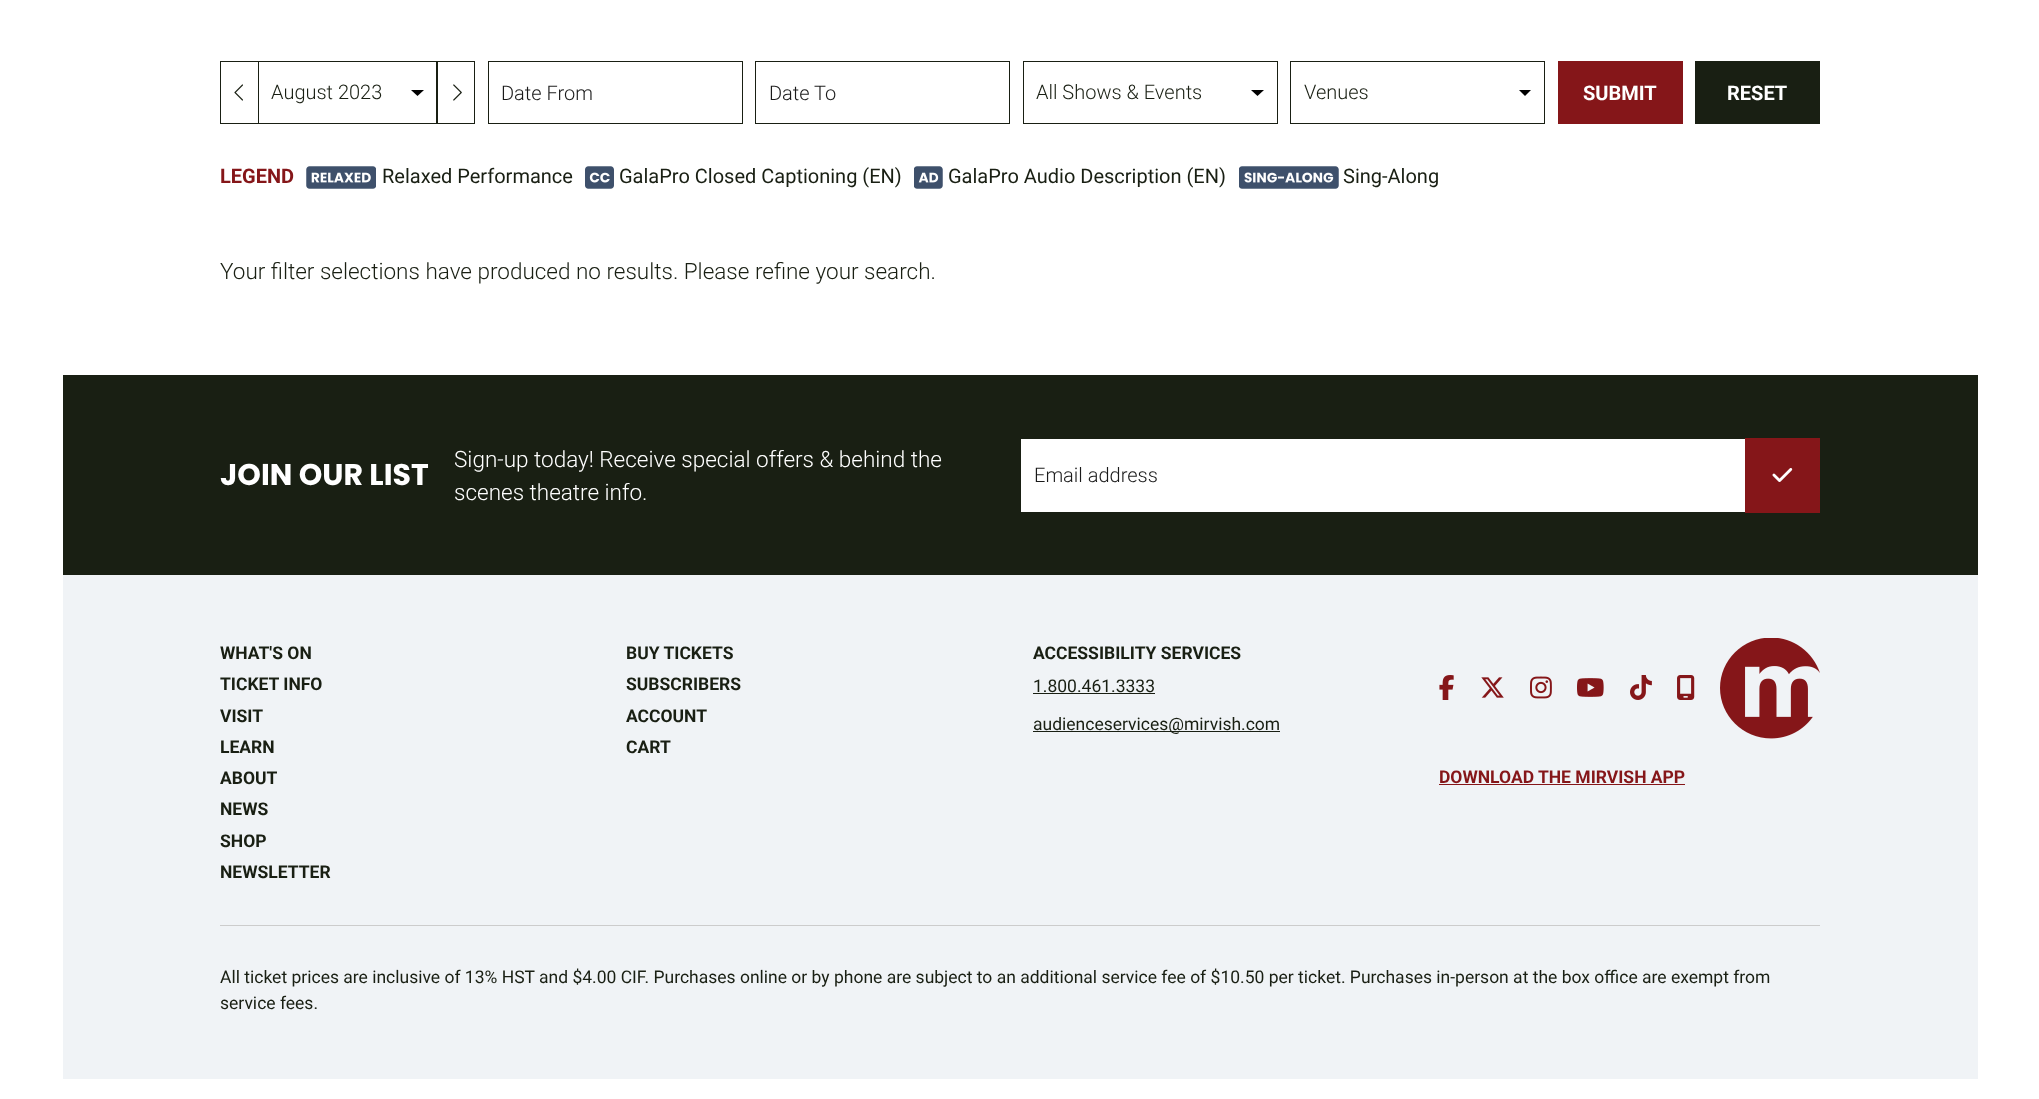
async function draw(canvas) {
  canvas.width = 2039
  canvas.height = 1099
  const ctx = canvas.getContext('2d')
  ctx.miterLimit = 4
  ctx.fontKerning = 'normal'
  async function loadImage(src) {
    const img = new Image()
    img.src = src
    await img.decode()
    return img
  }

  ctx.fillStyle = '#fff'
  ctx.fillRect(0, 0, 2039, 1099)
  ctx.strokeStyle = '#191f13'
  ctx.strokeRect(220.5, 61.5, 254, 62)
  ctx.drawImage(await loadImage('image0.png'), 234, 84, 9, 17)
  ctx.fillStyle = '#000'
  ctx.beginPath()
  ctx.moveTo(424, 90)
  ctx.lineTo(411, 90)
  ctx.lineTo(417.5, 96)
  ctx.closePath()
  ctx.fill()
  ctx.strokeRect(258.5, 61.5, 179, 62)
  ctx.font = '300 20px Roboto'
  ctx.fillStyle = '#191f13'
  ctx.fillText('August 2023', 271, 99)
  ctx.fillRect(436, 61, 1, 63)
  ctx.drawImage(await loadImage('image1.png'), 453, 84, 9, 17)
  ctx.strokeRect(488.5, 61.5, 254, 62)
  ctx.fillStyle = '#1a1a1a'
  ctx.fillText('Date From', 501, 100)
  ctx.strokeRect(755.5, 61.5, 254, 62)
  ctx.fillText('Date To', 769, 100)
  ctx.fillStyle = '#000'
  ctx.beginPath()
  ctx.moveTo(1264, 90)
  ctx.lineTo(1251, 90)
  ctx.lineTo(1257.5, 96)
  ctx.closePath()
  ctx.fill()
  ctx.strokeRect(1023.5, 61.5, 254, 62)
  ctx.fillStyle = '#191f13'
  ctx.fillText('All Shows & Events', 1036, 99)
  ctx.fillStyle = '#000'
  ctx.beginPath()
  ctx.moveTo(1531, 90)
  ctx.lineTo(1519, 90)
  ctx.lineTo(1525, 96)
  ctx.closePath()
  ctx.fill()
  ctx.strokeRect(1290.5, 61.5, 254, 62)
  ctx.fillStyle = '#191f13'
  ctx.fillText('Venues', 1304, 99)
  ctx.fillStyle = '#851619'
  ctx.fillRect(1558, 61, 125, 63)
  ctx.font = 'bold 20px Roboto'
  ctx.fillStyle = '#fff'
  ctx.fillText('SUBMIT', 1583, 100)
  ctx.fillStyle = '#191f13'
  ctx.fillRect(1695, 61, 125, 63)
  ctx.fillStyle = '#fff'
  ctx.fillText('RESET', 1727, 100)
  ctx.fillStyle = '#851619'
  ctx.fillText('LEGEND', 220, 183)
  ctx.drawImage(await loadImage('image2.png'), 306, 166, 70, 23)
  ctx.font = '20px Roboto'
  ctx.fillStyle = '#191f13'
  ctx.fillText('Relaxed Performance', 382, 183)
  ctx.drawImage(await loadImage('image3.png'), 585, 166, 29, 23)
  ctx.fillText('GalaPro Closed Captioning (EN)', 619, 183)
  ctx.drawImage(await loadImage('image4.png'), 914, 166, 29, 23)
  ctx.fillText('GalaPro Audio Description (EN)', 948, 183)
  ctx.drawImage(await loadImage('image5.png'), 1239, 166, 100, 23)
  ctx.fillText('Sing-Along', 1343, 183)
  ctx.font = '300 22.5px Roboto'
  ctx.fillText('Your filter selections have produced no results. Please refine your search.', 220, 279)
  ctx.fillRect(63, 375, 1915, 200)
  ctx.font = 'bold 30px Poppins'
  ctx.fillStyle = '#fff'
  ctx.fillText('JOIN OUR LIST', 220, 485)
  ctx.font = '300 22.5px Roboto'
  ctx.fillText('Sign-up today! Receive special offers & behind the', 454, 467)
  ctx.fillText('scenes theatre info.', 454, 500)
  ctx.fillRect(1021, 439, 724, 73)
  ctx.font = '300 20px Roboto'
  ctx.fillStyle = '#1a1a1a'
  ctx.fillText('Email address', 1034, 482)
  ctx.fillStyle = '#851619'
  ctx.fillRect(1745, 438, 75, 75)
  ctx.drawImage(await loadImage('image6.png'), 1772, 468, 21, 14)
  ctx.fillStyle = '#f0f3f6'
  ctx.fillRect(63, 575, 1915, 504)
  ctx.font = 'bold 17.5px Roboto'
  ctx.fillStyle = '#191f13'
  ctx.fillText('WHAT\'S ON', 220, 659)
  ctx.fillText('TICKET INFO', 220, 690)
  ctx.fillText('VISIT', 220, 722)
  ctx.fillText('LEARN', 220, 753)
  ctx.fillText('ABOUT', 220, 784)
  ctx.fillText('NEWS', 220, 815)
  ctx.fillText('SHOP', 220, 847)
  ctx.fillText('NEWSLETTER', 220, 878)
  ctx.fillText('BUY TICKETS', 626, 659)
  ctx.fillText('SUBSCRIBERS', 626, 690)
  ctx.fillText('ACCOUNT', 626, 722)
  ctx.fillText('CART', 626, 753)
  ctx.fillText('ACCESSIBILITY SERVICES', 1033, 659)
  ctx.font = '17.5px Roboto'
  ctx.fillText('1.800.461.3333', 1033, 692)
  ctx.fillRect(1033, 693, 122, 1)
  ctx.fillRect(1033, 731, 247, 1)
  ctx.fillText('audienceservices@mirvish.com', 1033, 730)
  ctx.drawImage(await loadImage('image7.png'), 1439, 675, 15, 25)
  ctx.drawImage(await loadImage('image8.png'), 1481, 677, 23, 21)
  ctx.drawImage(await loadImage('image9.png'), 1530, 676, 22, 23)
  ctx.drawImage(await loadImage('image10.png'), 1577, 678, 27, 19)
  ctx.drawImage(await loadImage('image11.png'), 1630, 675, 22, 25)
  ctx.drawImage(await loadImage('image12.png'), 1677, 675, 18, 25)
  ctx.drawImage(await loadImage('image13.png'), 1720, 638, 100, 101)
  ctx.font = 'bold 17.5px Roboto'
  ctx.fillStyle = '#851619'
  ctx.fillText('DOWNLOAD THE MIRVISH APP', 1439, 783)
  ctx.fillRect(1439, 784, 246, 1)
  ctx.fillStyle = '#ccc'
  ctx.fillRect(220, 925, 1600, 1)
  ctx.font = '17.5px Roboto'
  ctx.fillStyle = '#191f13'
  ctx.fillText('All ticket prices are inclusive of 13% HST and $4.00 CIF. Purchases online or by phone are subject to an additional service fee of $10.50 per ticket. Purchases in-person at the box office are exempt from', 220, 983)
  ctx.fillText('service fees.', 220, 1009)
}

draw(document.querySelector('canvas'))
